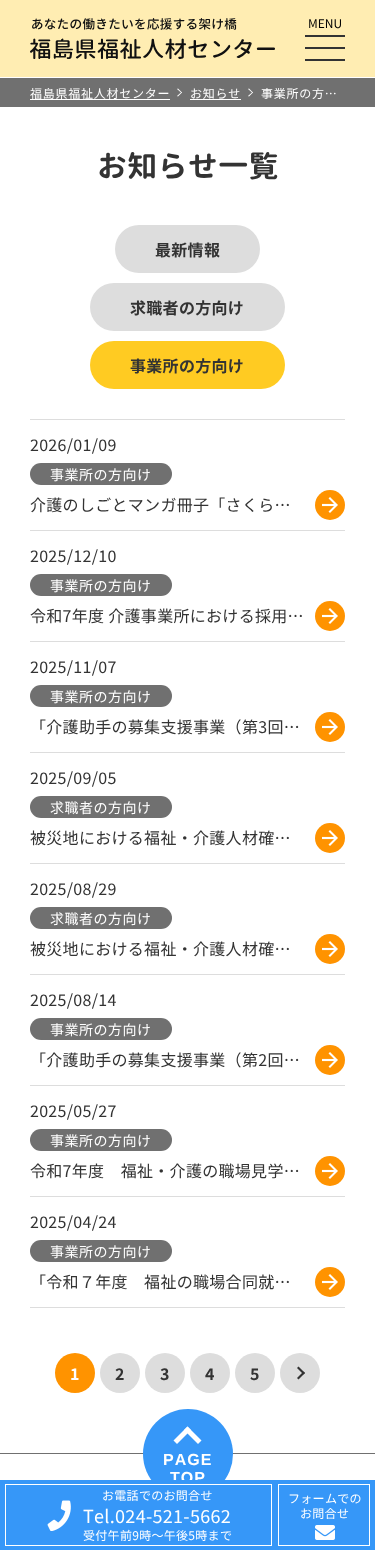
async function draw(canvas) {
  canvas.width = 375
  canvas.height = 1550
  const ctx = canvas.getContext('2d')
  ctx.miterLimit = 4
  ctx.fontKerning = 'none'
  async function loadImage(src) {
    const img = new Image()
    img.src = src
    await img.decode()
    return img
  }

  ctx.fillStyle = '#fff'
  ctx.fillRect(0, 0, 375, 1550)
  ctx.fillStyle = '#ffedb2'
  ctx.fillRect(0, 0, 375, 77)
  ctx.drawImage(await loadImage('image0.png'), 30, 18, 245, 41)
  ctx.font = '12px Noto Sans JP'
  ctx.fillStyle = '#000'
  ctx.fillText('MENU', 308, 28)
  ctx.fillStyle = '#333'
  ctx.fillRect(305, 35, 40, 2)
  ctx.fillRect(305, 47, 40, 2)
  ctx.fillRect(305, 59, 40, 2)
  ctx.fillStyle = '#707070'
  ctx.fillRect(0, 1453, 375, 1)
  ctx.fillStyle = '#3697f8'
  ctx.beginPath()
  ctx.arc(188, 1454, 45, 0, 2 * Math.PI)
  ctx.fill()
  ctx.letterSpacing = '1px'
  ctx.font = 'bold 16px Liberation Sans'
  ctx.fillStyle = '#fff'
  ctx.fillText('TOP', 170, 1483)
  ctx.fillStyle = '#3697f8'
  ctx.fillRect(0, 1480, 375, 70)
  ctx.drawImage(await loadImage('image1.png'), 47, 1500, 24, 31)
  ctx.strokeStyle = '#fff'
  ctx.strokeRect(5.5, 1484.5, 266, 61)
  ctx.letterSpacing = '0.3px'
  ctx.font = '12px Noto Sans JP'
  ctx.fillStyle = '#fff'
  ctx.fillText('お電話でのお問合せ', 102, 1500)
  ctx.font = '18px Noto Sans JP'
  ctx.fillText('Tel.024-521-5662', 83, 1523)
  ctx.font = '12px Noto Sans JP'
  ctx.fillText('受付午前9時〜午後5時まで', 83, 1540)
  ctx.drawImage(await loadImage('image2.png'), 315, 1525, 20, 15)
  ctx.strokeRect(278.5, 1484.5, 91, 61)
  ctx.fillText('フォームでの', 288, 1503)
  ctx.fillText('お問合せ', 300, 1518)
  ctx.fillStyle = '#707070'
  ctx.fillRect(0, 78, 375, 29)
  ctx.letterSpacing = '0.75px'
  ctx.fillStyle = '#fff'
  ctx.fillText('福島県福祉人材センター', 30, 98)
  ctx.fillRect(30, 99, 140, 1)
  ctx.beginPath()
  ctx.moveTo(178, 88.5)
  ctx.lineTo(182, 92.5)
  ctx.lineTo(181.5, 93)
  ctx.lineTo(177, 89)
  ctx.closePath()
  ctx.fill()
  ctx.beginPath()
  ctx.moveTo(181.5, 92)
  ctx.lineTo(182, 92.5)
  ctx.lineTo(178, 96.5)
  ctx.lineTo(177, 96)
  ctx.closePath()
  ctx.fill()
  ctx.fillText('お知らせ', 190, 98)
  ctx.fillRect(190, 99, 51, 1)
  ctx.beginPath()
  ctx.moveTo(249, 88.5)
  ctx.lineTo(253, 92.5)
  ctx.lineTo(252.5, 93)
  ctx.lineTo(248, 89)
  ctx.closePath()
  ctx.fill()
  ctx.beginPath()
  ctx.moveTo(252.5, 92)
  ctx.lineTo(253, 92.5)
  ctx.lineTo(249, 96.5)
  ctx.lineTo(248, 96)
  ctx.closePath()
  ctx.fill()
  ctx.fillText('事業所の方…', 261, 98)
  ctx.letterSpacing = '0.3px'
  ctx.font = 'bold 30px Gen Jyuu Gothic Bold'
  ctx.fillStyle = '#333'
  ctx.fillText('お知らせ一覧', 97, 177)
  ctx.fillStyle = '#ddd'
  ctx.beginPath()
  ctx.roundRect(115, 225, 145, 48, 24)
  ctx.fill()
  ctx.font = 'bold 16px Noto Sans JP'
  ctx.fillStyle = '#333'
  ctx.fillText('最新情報', 155, 256)
  ctx.fillStyle = '#ddd'
  ctx.beginPath()
  ctx.roundRect(90, 283, 195, 48, 24)
  ctx.fill()
  ctx.fillStyle = '#333'
  ctx.fillText('求職者の方向け', 130, 314)
  ctx.fillStyle = '#ffcb22'
  ctx.beginPath()
  ctx.roundRect(90, 341, 195, 48, 24)
  ctx.fill()
  ctx.fillStyle = '#333'
  ctx.fillText('事業所の方向け', 130, 372)
  ctx.fillStyle = '#ddd'
  ctx.fillRect(30, 419, 315, 1)
  ctx.fillRect(30, 1307, 315, 1)
  ctx.font = '16px Noto Sans JP'
  ctx.fillStyle = '#333'
  ctx.fillText('2026/01/09', 30, 451)
  ctx.fillStyle = '#707070'
  ctx.beginPath()
  ctx.roundRect(30, 463, 142, 22, 11)
  ctx.fill()
  ctx.letterSpacing = '0.5px'
  ctx.font = '14px Noto Sans JP'
  ctx.fillStyle = '#fff'
  ctx.fillText('事業所の方向け', 50, 480)
  ctx.letterSpacing = '0.3px'
  ctx.font = '16px Noto Sans JP'
  ctx.fillStyle = '#333'
  ctx.fillText('介護のしごとマンガ冊子「さくら…', 30, 511)
  ctx.fillStyle = '#ff9300'
  ctx.beginPath()
  ctx.arc(330, 505, 15, 0, 2 * Math.PI)
  ctx.fill()
  ctx.drawImage(await loadImage('image3.png'), 322, 497, 16, 16)
  ctx.fillStyle = '#ddd'
  ctx.fillRect(30, 530, 315, 1)
  ctx.fillStyle = '#333'
  ctx.fillText('2025/12/10', 30, 562)
  ctx.fillStyle = '#707070'
  ctx.beginPath()
  ctx.roundRect(30, 574, 142, 22, 11)
  ctx.fill()
  ctx.letterSpacing = '0.5px'
  ctx.font = '14px Noto Sans JP'
  ctx.fillStyle = '#fff'
  ctx.fillText('事業所の方向け', 50, 591)
  ctx.letterSpacing = '0.3px'
  ctx.font = '16px Noto Sans JP'
  ctx.fillStyle = '#333'
  ctx.fillText('令和7年度 介護事業所における採用…', 30, 622)
  ctx.fillStyle = '#ff9300'
  ctx.beginPath()
  ctx.arc(330, 616, 15, 0, 2 * Math.PI)
  ctx.fill()
  ctx.drawImage(await loadImage('image3.png'), 322, 608, 16, 16)
  ctx.fillStyle = '#ddd'
  ctx.fillRect(30, 641, 315, 1)
  ctx.fillStyle = '#333'
  ctx.fillText('2025/11/07', 30, 673)
  ctx.fillStyle = '#707070'
  ctx.beginPath()
  ctx.roundRect(30, 685, 142, 22, 11)
  ctx.fill()
  ctx.letterSpacing = '0.5px'
  ctx.font = '14px Noto Sans JP'
  ctx.fillStyle = '#fff'
  ctx.fillText('事業所の方向け', 50, 702)
  ctx.letterSpacing = '0.3px'
  ctx.font = '16px Noto Sans JP'
  ctx.fillStyle = '#333'
  ctx.fillText('「介護助手の募集支援事業（第3回…', 30, 733)
  ctx.fillStyle = '#ff9300'
  ctx.beginPath()
  ctx.arc(330, 727, 15, 0, 2 * Math.PI)
  ctx.fill()
  ctx.drawImage(await loadImage('image3.png'), 322, 719, 16, 16)
  ctx.fillStyle = '#ddd'
  ctx.fillRect(30, 752, 315, 1)
  ctx.fillStyle = '#333'
  ctx.fillText('2025/09/05', 30, 784)
  ctx.fillStyle = '#707070'
  ctx.beginPath()
  ctx.roundRect(30, 796, 142, 22, 11)
  ctx.fill()
  ctx.letterSpacing = '0.5px'
  ctx.font = '14px Noto Sans JP'
  ctx.fillStyle = '#fff'
  ctx.fillText('求職者の方向け', 50, 813)
  ctx.letterSpacing = '0.3px'
  ctx.font = '16px Noto Sans JP'
  ctx.fillStyle = '#333'
  ctx.fillText('被災地における福祉・介護人材確…', 30, 844)
  ctx.fillStyle = '#ff9300'
  ctx.beginPath()
  ctx.arc(330, 838, 15, 0, 2 * Math.PI)
  ctx.fill()
  ctx.drawImage(await loadImage('image3.png'), 322, 830, 16, 16)
  ctx.fillStyle = '#ddd'
  ctx.fillRect(30, 863, 315, 1)
  ctx.fillStyle = '#333'
  ctx.fillText('2025/08/29', 30, 895)
  ctx.fillStyle = '#707070'
  ctx.beginPath()
  ctx.roundRect(30, 907, 142, 22, 11)
  ctx.fill()
  ctx.letterSpacing = '0.5px'
  ctx.font = '14px Noto Sans JP'
  ctx.fillStyle = '#fff'
  ctx.fillText('求職者の方向け', 50, 924)
  ctx.letterSpacing = '0.3px'
  ctx.font = '16px Noto Sans JP'
  ctx.fillStyle = '#333'
  ctx.fillText('被災地における福祉・介護人材確…', 30, 955)
  ctx.fillStyle = '#ff9300'
  ctx.beginPath()
  ctx.arc(330, 949, 15, 0, 2 * Math.PI)
  ctx.fill()
  ctx.drawImage(await loadImage('image3.png'), 322, 941, 16, 16)
  ctx.fillStyle = '#ddd'
  ctx.fillRect(30, 974, 315, 1)
  ctx.fillStyle = '#333'
  ctx.fillText('2025/08/14', 30, 1006)
  ctx.fillStyle = '#707070'
  ctx.beginPath()
  ctx.roundRect(30, 1018, 142, 22, 11)
  ctx.fill()
  ctx.letterSpacing = '0.5px'
  ctx.font = '14px Noto Sans JP'
  ctx.fillStyle = '#fff'
  ctx.fillText('事業所の方向け', 50, 1035)
  ctx.letterSpacing = '0.3px'
  ctx.font = '16px Noto Sans JP'
  ctx.fillStyle = '#333'
  ctx.fillText('「介護助手の募集支援事業（第2回…', 30, 1066)
  ctx.fillStyle = '#ff9300'
  ctx.beginPath()
  ctx.arc(330, 1060, 15, 0, 2 * Math.PI)
  ctx.fill()
  ctx.drawImage(await loadImage('image3.png'), 322, 1052, 16, 16)
  ctx.fillStyle = '#ddd'
  ctx.fillRect(30, 1085, 315, 1)
  ctx.fillStyle = '#333'
  ctx.fillText('2025/05/27', 30, 1117)
  ctx.fillStyle = '#707070'
  ctx.beginPath()
  ctx.roundRect(30, 1129, 142, 22, 11)
  ctx.fill()
  ctx.letterSpacing = '0.5px'
  ctx.font = '14px Noto Sans JP'
  ctx.fillStyle = '#fff'
  ctx.fillText('事業所の方向け', 50, 1146)
  ctx.letterSpacing = '0.3px'
  ctx.font = '16px Noto Sans JP'
  ctx.fillStyle = '#333'
  ctx.fillText('令和7年度　福祉・介護の職場見学…', 30, 1177)
  ctx.fillStyle = '#ff9300'
  ctx.beginPath()
  ctx.arc(330, 1171, 15, 0, 2 * Math.PI)
  ctx.fill()
  ctx.drawImage(await loadImage('image3.png'), 322, 1163, 16, 16)
  ctx.fillStyle = '#ddd'
  ctx.fillRect(30, 1196, 315, 1)
  ctx.fillStyle = '#333'
  ctx.fillText('2025/04/24', 30, 1228)
  ctx.fillStyle = '#707070'
  ctx.beginPath()
  ctx.roundRect(30, 1240, 142, 22, 11)
  ctx.fill()
  ctx.letterSpacing = '0.5px'
  ctx.font = '14px Noto Sans JP'
  ctx.fillStyle = '#fff'
  ctx.fillText('事業所の方向け', 50, 1257)
  ctx.letterSpacing = '0.3px'
  ctx.font = '16px Noto Sans JP'
  ctx.fillStyle = '#333'
  ctx.fillText('「令和７年度　福祉の職場合同就…', 30, 1288)
  ctx.fillStyle = '#ff9300'
  ctx.beginPath()
  ctx.arc(330, 1282, 15, 0, 2 * Math.PI)
  ctx.fill()
  ctx.drawImage(await loadImage('image3.png'), 322, 1274, 16, 16)
  ctx.beginPath()
  ctx.arc(75, 1373, 20, 0, 2 * Math.PI)
  ctx.fill()
  ctx.font = 'bold 16px Noto Sans JP'
  ctx.fillStyle = '#fff'
  ctx.fillText('1', 70, 1380)
  ctx.fillStyle = '#ddd'
  ctx.beginPath()
  ctx.arc(120, 1373, 20, 0, 2 * Math.PI)
  ctx.fill()
  ctx.fillStyle = '#333'
  ctx.fillText('2', 115, 1380)
  ctx.fillStyle = '#ddd'
  ctx.beginPath()
  ctx.arc(165, 1373, 20, 0, 2 * Math.PI)
  ctx.fill()
  ctx.fillStyle = '#333'
  ctx.fillText('3', 160, 1380)
  ctx.fillStyle = '#ddd'
  ctx.beginPath()
  ctx.arc(210, 1373, 20, 0, 2 * Math.PI)
  ctx.fill()
  ctx.fillStyle = '#333'
  ctx.fillText('4', 205, 1380)
  ctx.fillStyle = '#ddd'
  ctx.beginPath()
  ctx.arc(255, 1373, 20, 0, 2 * Math.PI)
  ctx.fill()
  ctx.fillStyle = '#333'
  ctx.fillText('5', 250, 1380)
  ctx.fillStyle = '#ddd'
  ctx.beginPath()
  ctx.arc(300, 1373, 20, 0, 2 * Math.PI)
  ctx.fill()
  ctx.fillStyle = '#333'
  ctx.beginPath()
  ctx.moveTo(298.5, 1366.5)
  ctx.lineTo(305, 1373)
  ctx.lineTo(303.5, 1374.5)
  ctx.lineTo(297, 1368)
  ctx.closePath()
  ctx.fill()
  ctx.beginPath()
  ctx.moveTo(303.5, 1371.5)
  ctx.lineTo(305, 1373)
  ctx.lineTo(298.5, 1379.5)
  ctx.lineTo(297, 1378)
  ctx.closePath()
  ctx.fill()
  ctx.fillStyle = '#fff'
  ctx.beginPath()
  ctx.moveTo(187.5, 1426.5)
  ctx.lineTo(201.5, 1440.5)
  ctx.lineTo(198, 1444)
  ctx.lineTo(184, 1430)
  ctx.closePath()
  ctx.fill()
  ctx.beginPath()
  ctx.moveTo(187.5, 1426.5)
  ctx.lineTo(191, 1430)
  ctx.lineTo(177, 1444)
  ctx.lineTo(173.5, 1440.5)
  ctx.closePath()
  ctx.fill()
  ctx.letterSpacing = '1px'
  ctx.font = 'bold 16px Liberation Sans'
  ctx.fillText('PAGE', 163, 1465)
}

draw(document.querySelector('canvas'))
